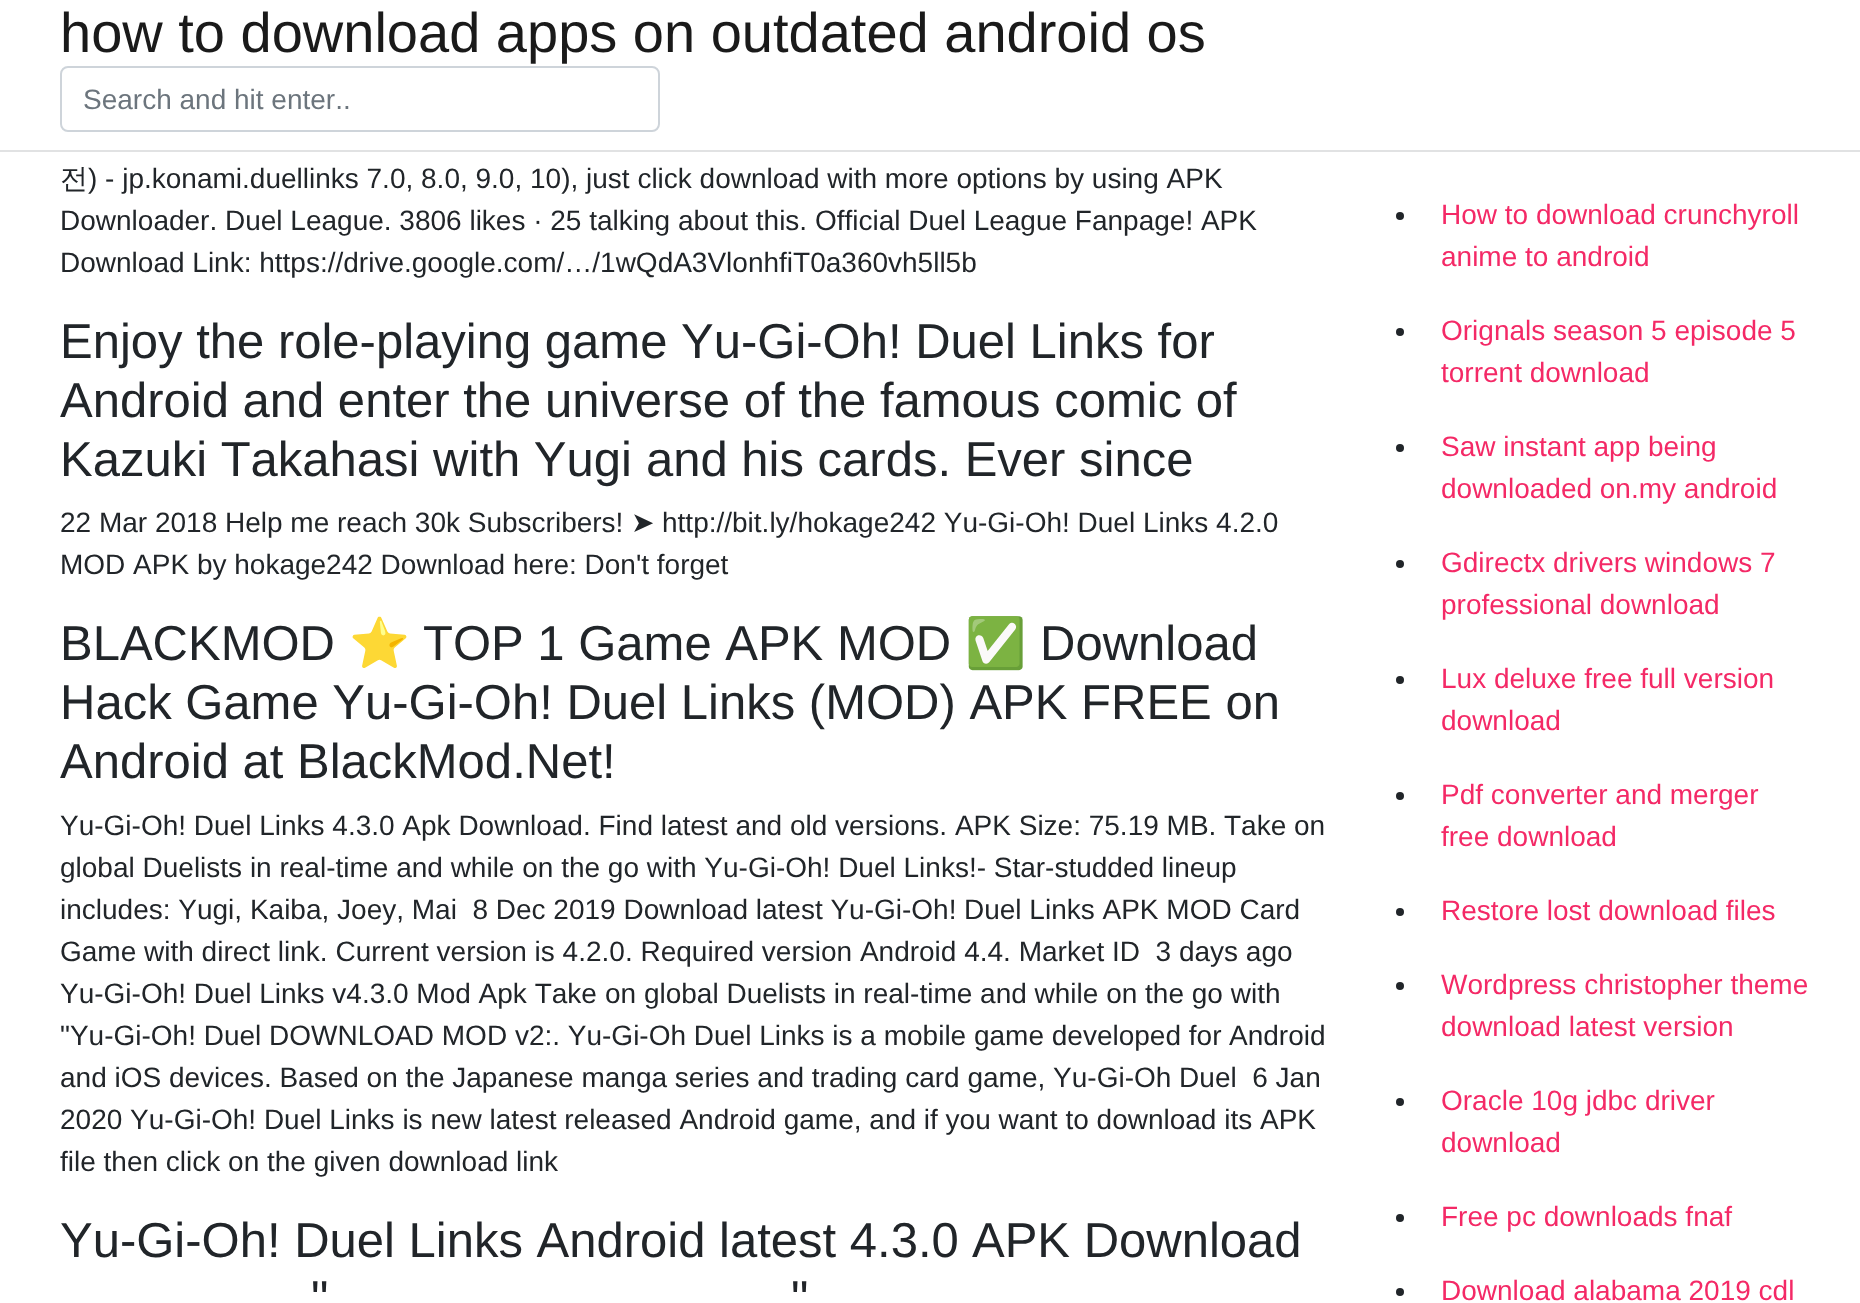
async function draw(canvas) {
  canvas.width = 1860
  canvas.height = 1303
  const ctx = canvas.getContext('2d')
  ctx.miterLimit = 4
  ctx.fontKerning = 'none'

  ctx.fillStyle = '#fff'
  ctx.fillRect(0, 0, 1860, 1303)
  ctx.fillStyle = '#e1e2e3'
  ctx.fillRect(0, 150, 1860, 2)
  ctx.font = '56px Liberation Sans'
  ctx.fillStyle = '#1a1a1a'
  ctx.fillText('how to download apps on outdated android os', 60, 52)
  ctx.beginPath()
  ctx.roundRect(61, 67, 598, 64, 7)
  ctx.strokeStyle = '#ced4da'
  ctx.lineWidth = 2
  ctx.stroke()
  ctx.font = '28px Liberation Sans'
  ctx.fillStyle = '#6c757d'
  ctx.fillText('Search and hit enter..', 83, 109)
  ctx.font = '500 28px WenQuanYi Zen Hei'
  ctx.fillStyle = '#212529'
  ctx.fillText('전', 60, 188)
  ctx.font = '28px Liberation Sans'
  ctx.fillText(') - jp.konami.duellinks 7.0, 8.0, 9.0, 10), just click download with more options by using APK', 88, 188)
  ctx.fillText('Downloader. Duel League. 3806 likes · 25 talking about this. Official Duel League Fanpage! APK', 60, 230)
  ctx.fillText('Download Link: https://drive.google.com/…/1wQdA3VlonhfiT0a360vh5ll5b', 60, 272)
  ctx.font = '49px Liberation Sans'
  ctx.fillText('Enjoy the role-playing game Yu-Gi-Oh! Duel Links for', 60, 358)
  ctx.fillText('Android and enter the universe of the famous comic of', 60, 417)
  ctx.fillText('Kazuki Takahasi with Yugi', 60, 476)
  ctx.fillText('and his cards. Ever since', 646, 476)
  ctx.font = '28px Liberation Sans'
  ctx.fillText('22 Mar 2018 Help me reach 30k Subscribers!', 60, 532)
  ctx.font = '28px DejaVu Sans'
  ctx.fillText('➤', 631, 532)
  ctx.font = '28px Liberation Sans'
  ctx.fillText('http://bit.ly/hokage242 Yu-Gi-Oh! Duel Links 4.2.0', 662, 532)
  ctx.fillText('MOD APK by hokage242 Download here: Don\'t forget', 60, 574)
  ctx.font = '49px Liberation Sans'
  ctx.fillText('BLACKMOD', 60, 660)
  ctx.font = '49px Noto Color Emoji'
  ctx.fillText('⭐', 349, 660)
  ctx.font = '49px Liberation Sans'
  ctx.fillText('TOP 1 Game APK MOD', 423, 660)
  ctx.font = '49px Noto Color Emoji'
  ctx.fillText('✅', 965, 660)
  ctx.font = '49px Liberation Sans'
  ctx.fillText('Download', 1040, 660)
  ctx.fillText('Hack Game Yu-Gi-Oh! Duel Links (MOD) APK FREE on', 60, 719)
  ctx.fillText('Android at BlackMod.Net!', 60, 778)
  ctx.font = '28px Liberation Sans'
  ctx.fillText('Yu-Gi-Oh! Duel Links 4.3.0 Apk Download. Find latest and old versions. APK Size: 75.19 MB.', 60, 835)
  ctx.fillText('Take on', 1224, 835)
  ctx.fillText('global Duelists in real-time and while on the go with Yu-Gi-Oh! Duel Links!- Star-studded lineup', 60, 877)
  ctx.fillText('includes: Yugi, Kaiba, Joey, Mai  8 Dec 2019 Download latest Yu-Gi-Oh!', 60, 919)
  ctx.fillText('Duel Links APK MOD Card', 964, 919)
  ctx.fillText('Game with direct link. Current version is 4.2.0. Required version Android 4.4. Market ID  3 days ago', 60, 961)
  ctx.fillText('Yu-Gi-Oh! Duel Links v4.3.0 Mod Apk Take', 60, 1003)
  ctx.fillText('on global Duelists in real-time and while on the go with', 605, 1003)
  ctx.fillText('"Yu-Gi-Oh! Duel DOWNLOAD MOD v2:. Yu-Gi-Oh Duel Links is a mobile game developed for', 60, 1045)
  ctx.fillText('Android', 1229, 1045)
  ctx.fillText('and iOS devices. Based on the Japanese manga series and trading card game, Yu-Gi-Oh Duel  6 Jan', 60, 1087)
  ctx.fillText('2020 Yu-Gi-Oh! Duel Links is new latest released Android game, and if you want to download its', 60, 1129)
  ctx.fillText('APK', 1260, 1129)
  ctx.fillText('file then click on the given download link', 60, 1171)
  ctx.font = '49px Liberation Sans'
  ctx.fillText('Yu-Gi-Oh! Duel Links Android latest 4.3.0', 60, 1257)
  ctx.fillText('APK Download', 972, 1257)
  ctx.fillText('"', 311, 1315)
  ctx.fillText('"', 791, 1315)
  ctx.beginPath()
  ctx.arc(1400, 216, 4, 0, 2 * Math.PI)
  ctx.fill()
  ctx.font = '28px Liberation Sans'
  ctx.fillStyle = '#f42966'
  ctx.fillText('How to download crunchyroll', 1441, 224)
  ctx.fillText('anime to android', 1441, 266)
  ctx.fillStyle = '#212529'
  ctx.beginPath()
  ctx.arc(1400, 332, 4, 0, 2 * Math.PI)
  ctx.fill()
  ctx.fillStyle = '#f42966'
  ctx.fillText('Orignals season 5 episode 5', 1441, 340)
  ctx.fillText('torrent download', 1441, 382)
  ctx.fillStyle = '#212529'
  ctx.beginPath()
  ctx.arc(1400, 448, 4, 0, 2 * Math.PI)
  ctx.fill()
  ctx.fillStyle = '#f42966'
  ctx.fillText('Saw instant app being', 1441, 456)
  ctx.fillText('downloaded on.my android', 1441, 498)
  ctx.fillStyle = '#212529'
  ctx.beginPath()
  ctx.arc(1400, 564, 4, 0, 2 * Math.PI)
  ctx.fill()
  ctx.fillStyle = '#f42966'
  ctx.fillText('Gdirectx drivers windows 7', 1441, 572)
  ctx.fillText('professional download', 1441, 614)
  ctx.fillStyle = '#212529'
  ctx.beginPath()
  ctx.arc(1400, 680, 4, 0, 2 * Math.PI)
  ctx.fill()
  ctx.fillStyle = '#f42966'
  ctx.fillText('Lux deluxe free full version', 1441, 688)
  ctx.fillText('download', 1441, 730)
  ctx.fillStyle = '#212529'
  ctx.beginPath()
  ctx.arc(1400, 796, 4, 0, 2 * Math.PI)
  ctx.fill()
  ctx.fillStyle = '#f42966'
  ctx.fillText('Pdf converter and merger', 1441, 804)
  ctx.fillText('free download', 1441, 846)
  ctx.fillStyle = '#212529'
  ctx.beginPath()
  ctx.arc(1400, 912, 4, 0, 2 * Math.PI)
  ctx.fill()
  ctx.fillStyle = '#f42966'
  ctx.fillText('Restore lost download files', 1441, 920)
  ctx.fillStyle = '#212529'
  ctx.beginPath()
  ctx.arc(1400, 986, 4, 0, 2 * Math.PI)
  ctx.fill()
  ctx.fillStyle = '#f42966'
  ctx.fillText('Wordpress christopher theme', 1441, 994)
  ctx.fillText('download latest version', 1441, 1036)
  ctx.fillStyle = '#212529'
  ctx.beginPath()
  ctx.arc(1400, 1102, 4, 0, 2 * Math.PI)
  ctx.fill()
  ctx.fillStyle = '#f42966'
  ctx.fillText('Oracle 10g jdbc driver', 1441, 1110)
  ctx.fillText('download', 1441, 1152)
  ctx.fillStyle = '#212529'
  ctx.beginPath()
  ctx.arc(1400, 1218, 4, 0, 2 * Math.PI)
  ctx.fill()
  ctx.fillStyle = '#f42966'
  ctx.fillText('Free pc downloads fnaf', 1441, 1226)
  ctx.fillStyle = '#212529'
  ctx.beginPath()
  ctx.arc(1400, 1292, 4, 0, 2 * Math.PI)
  ctx.fill()
  ctx.fillStyle = '#f42966'
  ctx.fillText('Download alabama 2019 cdl', 1441, 1300)
}

draw(document.querySelector('canvas'))
